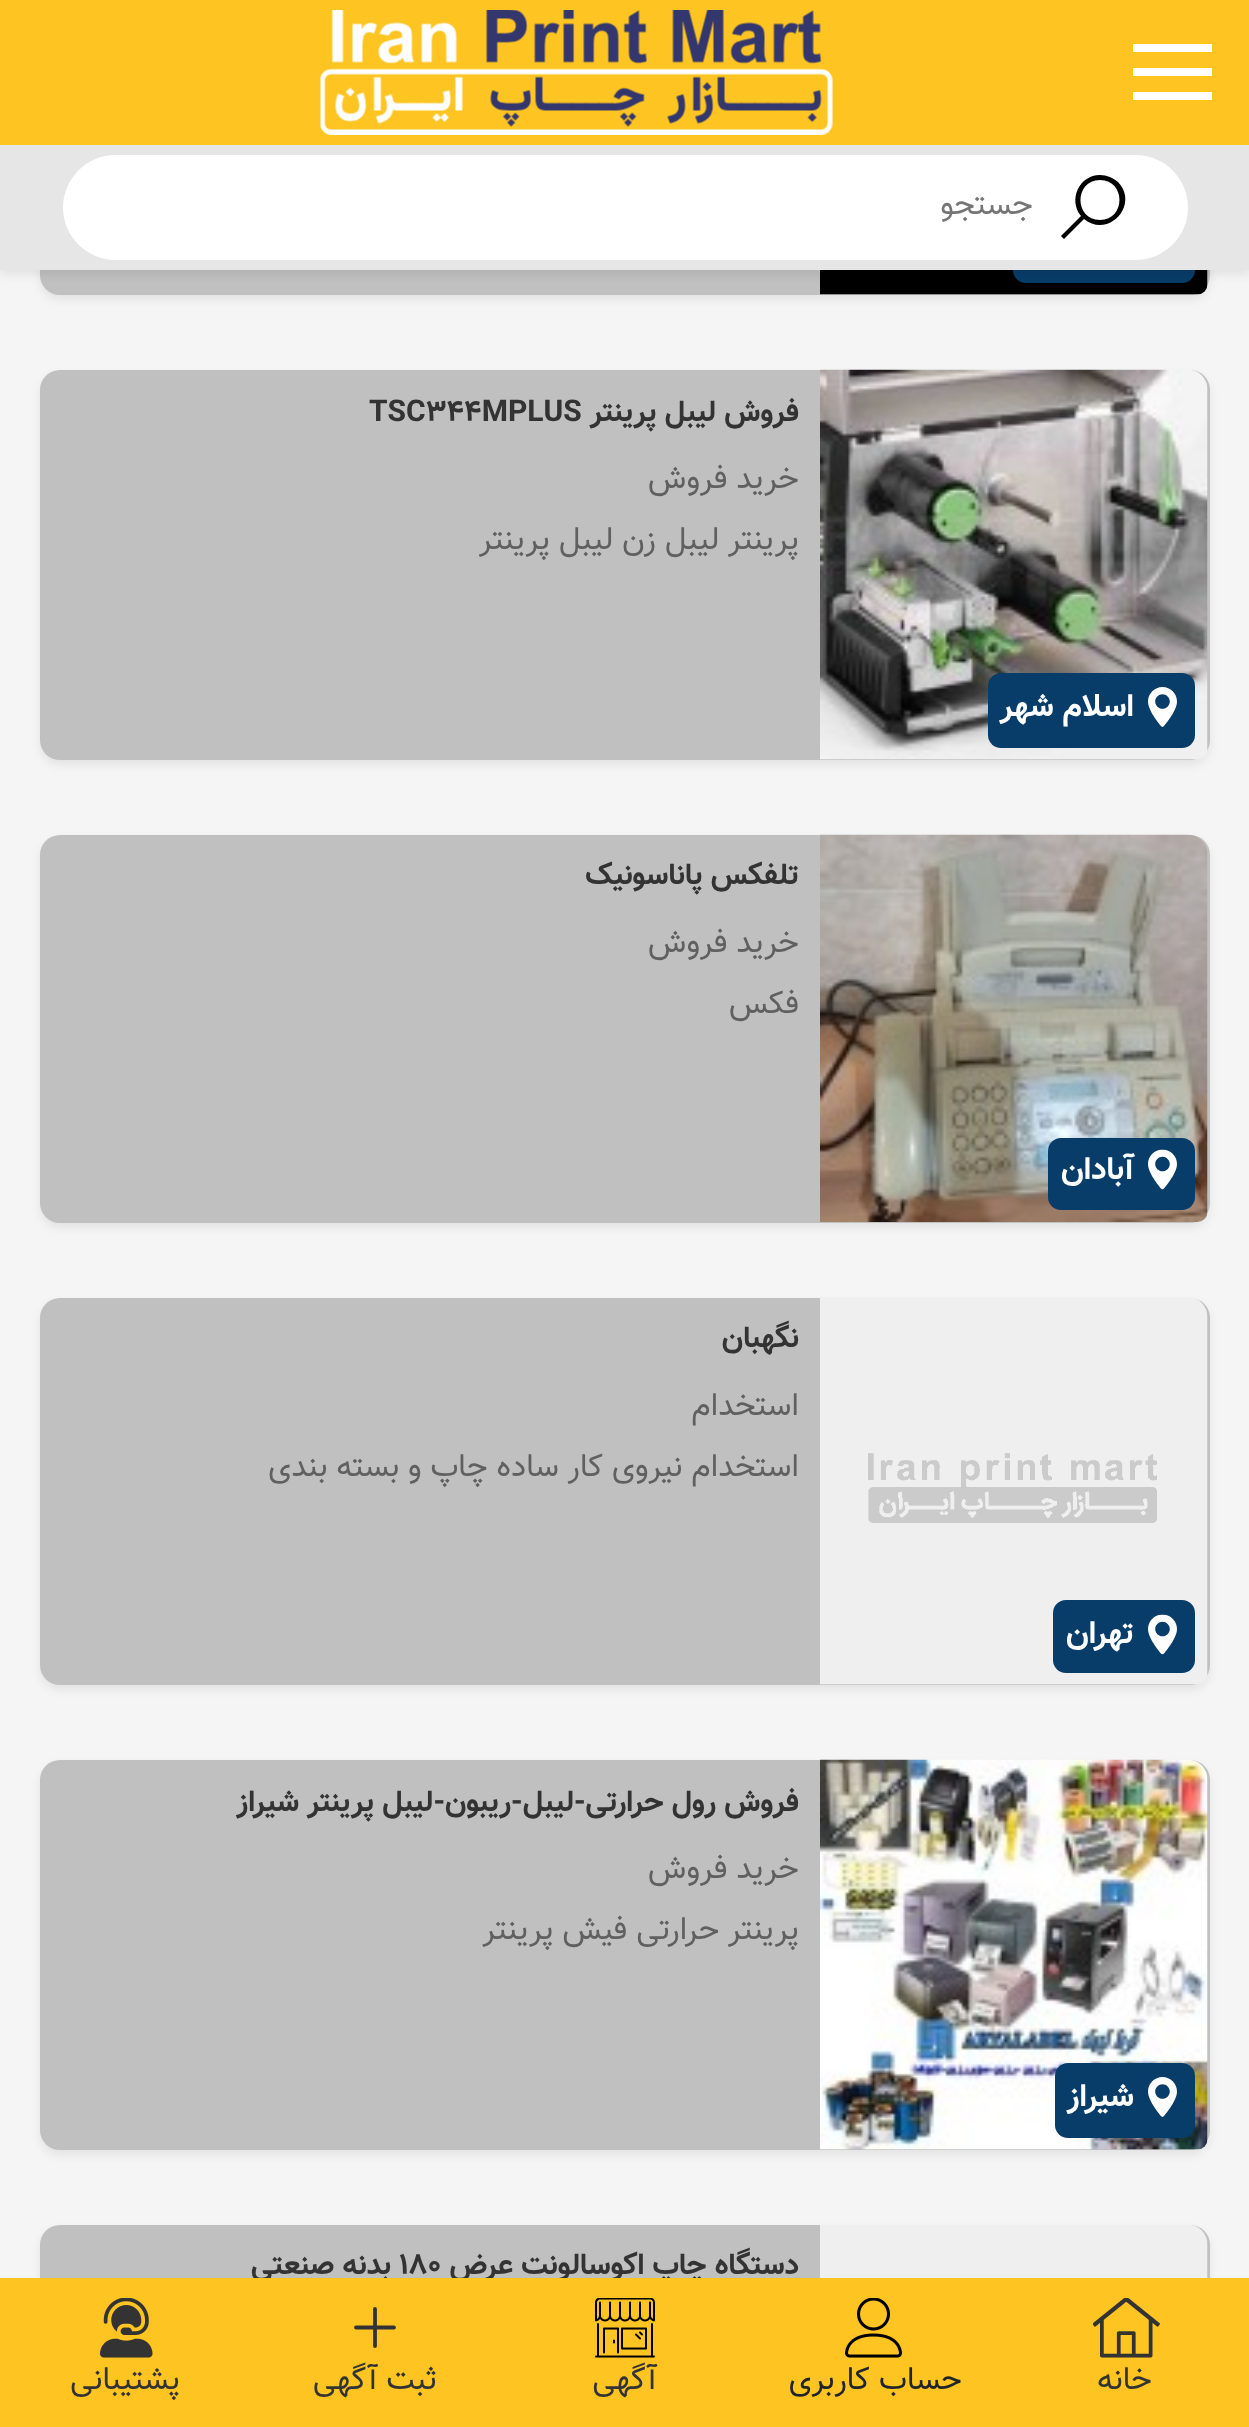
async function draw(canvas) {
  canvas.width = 1249
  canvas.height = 2427
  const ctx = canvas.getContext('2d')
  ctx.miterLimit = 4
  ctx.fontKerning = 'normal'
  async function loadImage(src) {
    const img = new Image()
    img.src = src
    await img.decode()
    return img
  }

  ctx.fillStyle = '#f5f5f5'
  ctx.fillRect(0, 0, 1249, 2427)
  ctx.fillStyle = '#00000012'
  ctx.filter = 'blur(5px)'
  ctx.beginPath()
  ctx.roundRect(40, -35, 1170, 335, 20)
  ctx.fill()
  ctx.filter = 'none'
  ctx.fillStyle = '#c0c0c0'
  ctx.beginPath()
  ctx.roundRect(40, -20, 1170, 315, 20)
  ctx.fill()
  ctx.drawImage(await loadImage('image1.png'), 820, 270, 388, 25)
  ctx.fillStyle = '#083d69'
  ctx.beginPath()
  ctx.roundRect(1013, 210, 182, 73, 13)
  ctx.fill()
  ctx.fillStyle = '#00000012'
  ctx.filter = 'blur(5px)'
  ctx.beginPath()
  ctx.rect(0, 5, 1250, 270)
  ctx.fill()
  ctx.filter = 'none'
  ctx.fillStyle = '#fec422'
  ctx.fillRect(0, 0, 1249, 145)
  ctx.save()
  ctx.beginPath()
  ctx.rect(1133, 33, 80, 80)
  ctx.clip()
  ctx.fillStyle = '#fff'
  ctx.beginPath()
  ctx.moveTo(1132, 44)
  ctx.lineTo(1132, 52)
  ctx.lineTo(1212, 52)
  ctx.lineTo(1212, 44)
  ctx.closePath()
  ctx.moveTo(1132, 68)
  ctx.lineTo(1132, 76)
  ctx.lineTo(1212, 76)
  ctx.lineTo(1212, 68)
  ctx.closePath()
  ctx.moveTo(1132, 92)
  ctx.lineTo(1132, 100)
  ctx.lineTo(1212, 100)
  ctx.lineTo(1212, 92)
  ctx.closePath()
  ctx.fill()
  ctx.restore()
  ctx.drawImage(await loadImage('image0.png'), 320, 10, 513, 125)
  ctx.fillStyle = '#e6e6e6'
  ctx.fillRect(0, 145, 1249, 125)
  ctx.fillStyle = '#fff'
  ctx.beginPath()
  ctx.roundRect(63, 155, 1125, 105, 52.5)
  ctx.fill()
  ctx.fillStyle = '#000'
  ctx.beginPath()
  ctx.moveTo(1100, 175)
  ctx.bezierCurveTo(1079, 175, 1068, 200, 1081, 216)
  ctx.lineTo(1061, 236)
  ctx.lineTo(1064, 239)
  ctx.lineTo(1084, 219)
  ctx.bezierCurveTo(1108, 239, 1140, 205, 1118, 182)
  ctx.bezierCurveTo(1113, 178, 1107, 175, 1100, 175)
  ctx.closePath()
  ctx.moveTo(1100, 180)
  ctx.bezierCurveTo(1126, 180, 1126, 220, 1100, 220)
  ctx.bezierCurveTo(1074, 220, 1074, 180, 1100, 180)
  ctx.closePath()
  ctx.fill()
  ctx.direction = 'rtl'
  ctx.font = '32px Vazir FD'
  ctx.fillStyle = '#757575'
  ctx.fillText('جستجو', 1033, 214)
  ctx.fillStyle = '#00000012'
  ctx.filter = 'blur(5px)'
  ctx.beginPath()
  ctx.roundRect(40, 375, 1170, 390, 20)
  ctx.fill()
  ctx.filter = 'none'
  ctx.fillStyle = '#c0c0c0'
  ctx.beginPath()
  ctx.roundRect(40, 370, 1170, 390, 20)
  ctx.fill()
  ctx.font = 'bold 30px Vazir FD'
  ctx.fillStyle = '#333'
  ctx.fillText('فروش لیبل پرینتر', 799, 421)
  ctx.direction = 'ltr'
  ctx.fillText('TSC344MPLUS', 369, 421)
  ctx.direction = 'rtl'
  ctx.font = '32px Vazir FD'
  ctx.fillStyle = '#606060'
  ctx.fillText('خرید فروش', 799, 488)
  ctx.fillText('پرینتر لیبل زن لیبل پرینتر', 799, 549)
  ctx.drawImage(await loadImage('image2.png'), 820, 369, 388, 391)
  ctx.fillStyle = '#083d69'
  ctx.beginPath()
  ctx.roundRect(988, 673, 207, 75, 13)
  ctx.fill()
  ctx.drawImage(await loadImage('image3.png'), 1148, 687, 29, 40)
  ctx.font = 'bold 32px Vazir FD'
  ctx.fillStyle = '#fff'
  ctx.fillText('اسلام شهر', 1134, 716)
  ctx.fillStyle = '#00000012'
  ctx.filter = 'blur(5px)'
  ctx.beginPath()
  ctx.roundRect(40, 840, 1170, 388, 20)
  ctx.fill()
  ctx.filter = 'none'
  ctx.fillStyle = '#c0c0c0'
  ctx.beginPath()
  ctx.roundRect(40, 835, 1170, 388, 20)
  ctx.fill()
  ctx.font = 'bold 30px Vazir FD'
  ctx.fillStyle = '#333'
  ctx.fillText('تلفکس پاناسونیک', 799, 884)
  ctx.font = '32px Vazir FD'
  ctx.fillStyle = '#606060'
  ctx.fillText('خرید فروش', 799, 952)
  ctx.fillText('فکس', 799, 1013)
  ctx.drawImage(await loadImage('image4.png'), 820, 834, 388, 388)
  ctx.fillStyle = '#083d69'
  ctx.beginPath()
  ctx.roundRect(1048, 1138, 147, 72, 13)
  ctx.fill()
  ctx.drawImage(await loadImage('image5.png'), 1148, 1149, 29, 41)
  ctx.font = 'bold 32px Vazir FD'
  ctx.fillStyle = '#fff'
  ctx.fillText('آبادان', 1134, 1179)
  ctx.fillStyle = '#00000012'
  ctx.filter = 'blur(5px)'
  ctx.beginPath()
  ctx.roundRect(40, 1303, 1170, 387, 20)
  ctx.fill()
  ctx.filter = 'none'
  ctx.fillStyle = '#c0c0c0'
  ctx.beginPath()
  ctx.roundRect(40, 1298, 1170, 387, 20)
  ctx.fill()
  ctx.font = 'bold 30px Vazir FD'
  ctx.fillStyle = '#333'
  ctx.fillText('نگهبان', 799, 1347)
  ctx.font = '32px Vazir FD'
  ctx.fillStyle = '#606060'
  ctx.fillText('استخدام', 799, 1415)
  ctx.fillText('استخدام نیروی کار ساده چاپ و بسته بندی', 799, 1476)
  ctx.drawImage(await loadImage('image6.png'), 820, 1297, 388, 388)
  ctx.fillStyle = '#083d69'
  ctx.beginPath()
  ctx.roundRect(1053, 1600, 142, 73, 13)
  ctx.fill()
  ctx.drawImage(await loadImage('image7.png'), 1148, 1614, 29, 41)
  ctx.font = 'bold 32px Vazir FD'
  ctx.fillStyle = '#fff'
  ctx.fillText('تهران', 1134, 1643)
  ctx.fillStyle = '#00000012'
  ctx.filter = 'blur(5px)'
  ctx.beginPath()
  ctx.roundRect(40, 1765, 1170, 390, 20)
  ctx.fill()
  ctx.filter = 'none'
  ctx.fillStyle = '#c0c0c0'
  ctx.beginPath()
  ctx.roundRect(40, 1760, 1170, 390, 20)
  ctx.fill()
  ctx.font = 'bold 30px Vazir FD'
  ctx.fillStyle = '#333'
  ctx.fillText('فروش رول حرارتی-لیبل-ریبون-لیبل پرینتر شیراز', 799, 1811)
  ctx.font = '32px Vazir FD'
  ctx.fillStyle = '#606060'
  ctx.fillText('خرید فروش', 799, 1878)
  ctx.fillText('پرینتر حرارتی فیش پرینتر', 799, 1939)
  ctx.drawImage(await loadImage('image8.png'), 820, 1759, 388, 391)
  ctx.fillStyle = '#083d69'
  ctx.beginPath()
  ctx.roundRect(1055, 2063, 140, 75, 13)
  ctx.fill()
  ctx.drawImage(await loadImage('image3.png'), 1148, 2077, 29, 40)
  ctx.font = 'bold 32px Vazir FD'
  ctx.fillStyle = '#fff'
  ctx.fillText('شیراز', 1134, 2106)
  ctx.fillStyle = '#00000012'
  ctx.filter = 'blur(5px)'
  ctx.beginPath()
  ctx.roundRect(40, 2230, 1170, 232, 20)
  ctx.fill()
  ctx.filter = 'none'
  ctx.fillStyle = '#c0c0c0'
  ctx.beginPath()
  ctx.roundRect(40, 2225, 1170, 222, 20)
  ctx.fill()
  ctx.drawImage(await loadImage('image9.png'), 820, 2225, 388, 53)
  ctx.font = 'bold 30px Vazir FD'
  ctx.fillStyle = '#333'
  ctx.fillText('دستگاه چاپ اکوسالونت عرض', 799, 2274)
  ctx.direction = 'ltr'
  ctx.fillText('180', 399, 2274)
  ctx.direction = 'rtl'
  ctx.fillText('بدنه صنعتی', 391, 2274)
  ctx.fillStyle = '#fec422'
  ctx.fillRect(0, 2278, 1249, 149)
  ctx.drawImage(await loadImage('image10.png'), 1093, 2298, 67, 60)
  ctx.font = '32px Vazir FD'
  ctx.fillStyle = '#333'
  ctx.fillText('خانه', 1152, 2389)
  ctx.drawImage(await loadImage('image11.png'), 845, 2298, 57, 60)
  ctx.fillStyle = '#212529'
  ctx.fillText('حساب کاربری', 962, 2389)
  ctx.drawImage(await loadImage('image12.png'), 595, 2298, 60, 60)
  ctx.fillStyle = '#333'
  ctx.fillText('آگهی', 657, 2389)
  ctx.beginPath()
  ctx.moveTo(375, 2309)
  ctx.lineTo(375, 2346)
  ctx.moveTo(394, 2327.5)
  ctx.lineTo(356, 2327.5)
  ctx.strokeStyle = '#333'
  ctx.lineWidth = 3.8
  ctx.lineCap = 'round'
  ctx.lineJoin = 'round'
  ctx.stroke()
  ctx.fillText('ثبت آگهی', 437, 2389)
  ctx.drawImage(await loadImage('image13.png'), 100, 2298, 53, 60)
  ctx.fillText('پشتیبانی', 180, 2389)
}

draw(document.querySelector('canvas'))
